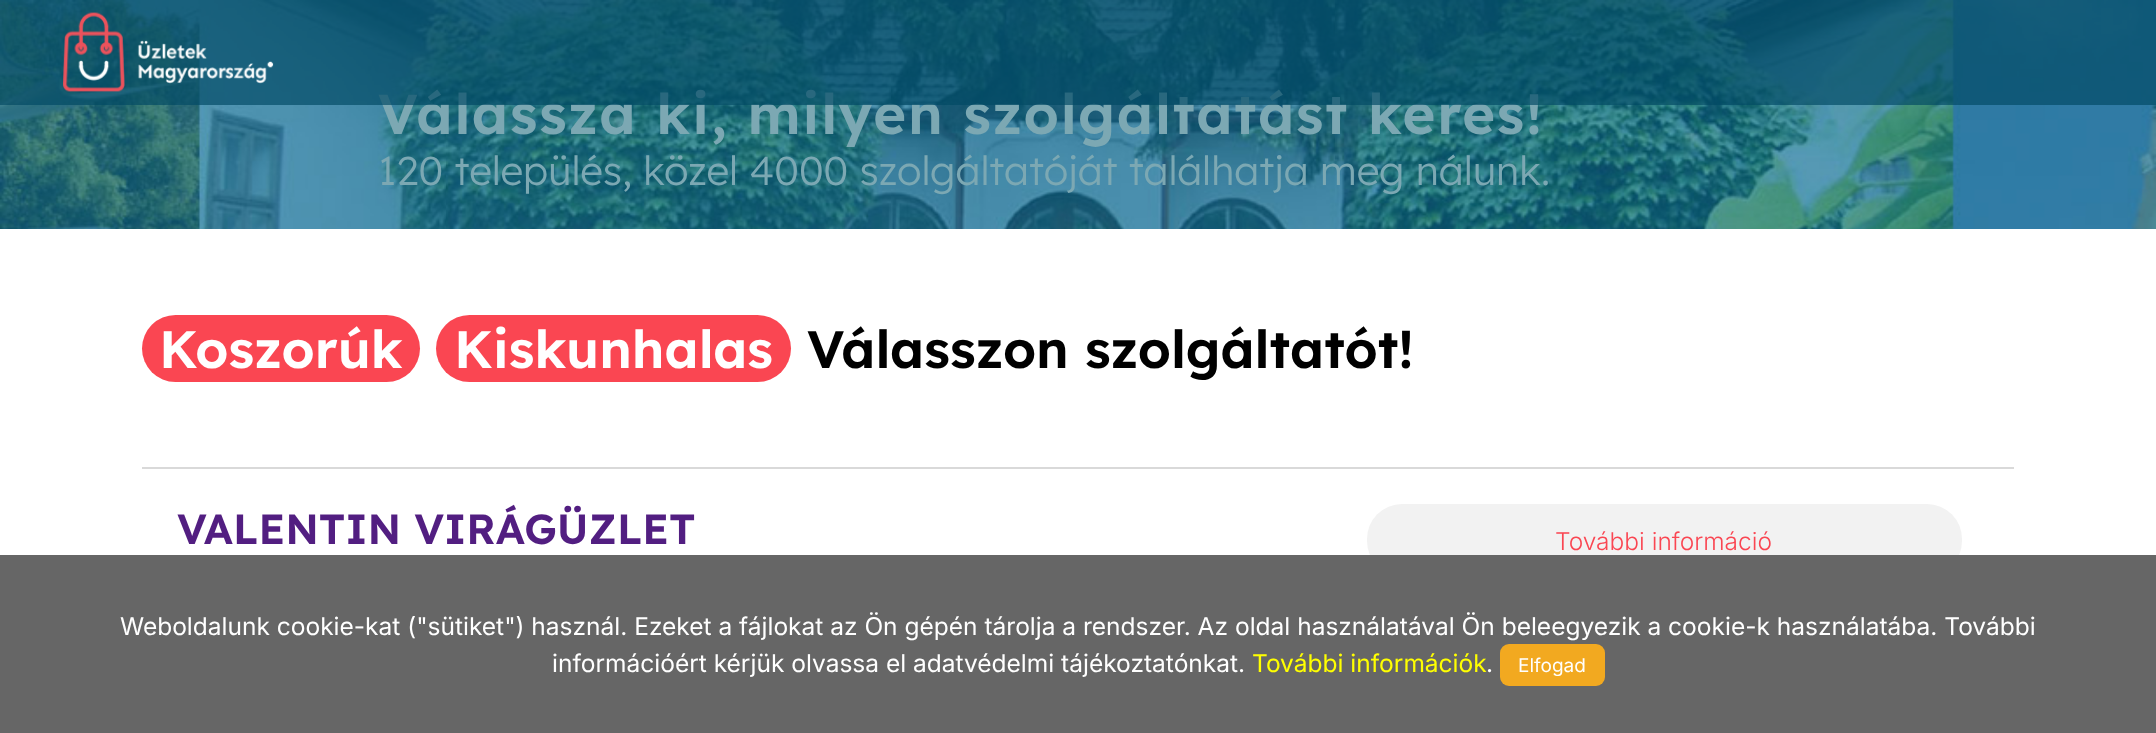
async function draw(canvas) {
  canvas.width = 2156
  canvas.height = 733
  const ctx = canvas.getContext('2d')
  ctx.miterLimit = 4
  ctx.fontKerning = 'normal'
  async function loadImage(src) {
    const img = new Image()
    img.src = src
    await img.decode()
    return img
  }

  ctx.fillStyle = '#fff'
  ctx.fillRect(0, 0, 2156, 733)
  ctx.drawImage(await loadImage('image1.png'), 0, 0, 2156, 229)
  ctx.letterSpacing = '1.75px'
  ctx.font = '600 56px Lexend'
  ctx.fillStyle = '#7ca8b3'
  ctx.fillText('Válassza ki, milyen szolgáltatást keres!', 378, 134)
  ctx.fillStyle = '#024964ad'
  ctx.fillRect(0, 0, 2156, 105)
  ctx.drawImage(await loadImage('image0.png'), 63, 12, 211, 80)
  ctx.letterSpacing = '0px'
  ctx.font = '300 40.25px Lexend'
  ctx.fillStyle = '#7ca8b3'
  ctx.fillText('120 település, közel 4000 szolgáltatóját találhatja meg nálunk.', 378, 185)
  ctx.fillStyle = '#fa4652'
  ctx.beginPath()
  ctx.roundRect(142, 315, 278, 67, 33.5)
  ctx.fill()
  ctx.font = '600 52.5px Lexend'
  ctx.fillStyle = '#fff'
  ctx.fillText('Koszorúk', 159, 368)
  ctx.fillStyle = '#fa4652'
  ctx.beginPath()
  ctx.roundRect(436, 315, 355, 67, 33.5)
  ctx.fill()
  ctx.fillStyle = '#fff'
  ctx.fillText('Kiskunhalas', 454, 368)
  ctx.fillStyle = '#000'
  ctx.fillText('Válasszon szolgáltatót!', 807, 368)
  ctx.fillStyle = '#d9d9d9'
  ctx.fillRect(142, 467, 1872, 2)
  ctx.font = '600 42px Lexend'
  ctx.fillStyle = '#521e81'
  ctx.fillText('VALENTIN VIRÁGÜZLET', 177, 544)
  ctx.fillStyle = '#f2f2f2'
  ctx.beginPath()
  ctx.roundRect(1367, 504, 595, 72, 35)
  ctx.fill()
  ctx.font = '300 24.5px Inter'
  ctx.fillStyle = '#fa4652'
  ctx.fillText('További információ', 1555, 550)
  ctx.fillStyle = '#666'
  ctx.fillRect(0, 555, 2156, 178)
  ctx.font = '24.5px Inter'
  ctx.fillStyle = '#fff'
  ctx.fillText('Weboldalunk cookie-kat ("sütiket") használ. Ezeket a fájlokat az Ön gépén tárolja a rendszer. Az oldal használatával Ön beleegyezik a cookie-k használatába. További', 120, 635)
  ctx.fillText('információért kérjük olvassa el adatvédelmi tájékoztatónkat.', 552, 672)
  ctx.fillStyle = '#ff0'
  ctx.fillText('További információk', 1252, 672)
  ctx.fillStyle = '#fff'
  ctx.fillText('.', 1486, 672)
  ctx.fillStyle = '#f2a920'
  ctx.beginPath()
  ctx.roundRect(1500, 644, 105, 42, 9)
  ctx.fill()
  ctx.font = '19px Inter'
  ctx.fillStyle = '#fff'
  ctx.fillText('Elfogad', 1518, 672)
}

draw(document.querySelector('canvas'))
